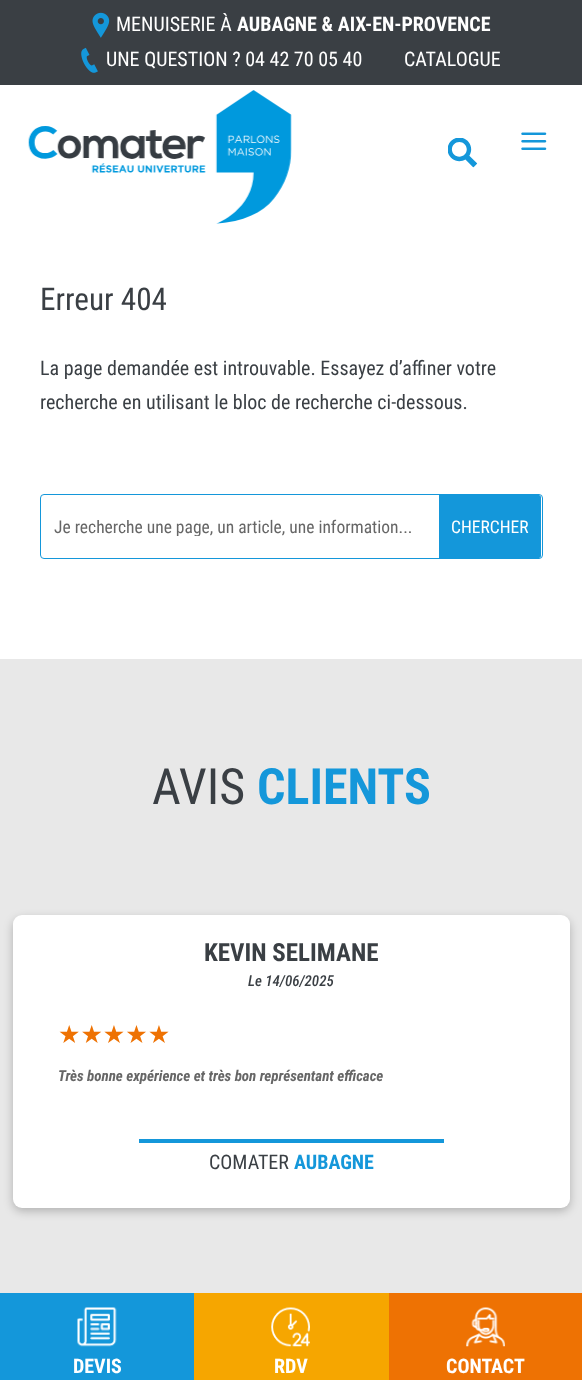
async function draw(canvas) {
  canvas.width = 582
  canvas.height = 1380
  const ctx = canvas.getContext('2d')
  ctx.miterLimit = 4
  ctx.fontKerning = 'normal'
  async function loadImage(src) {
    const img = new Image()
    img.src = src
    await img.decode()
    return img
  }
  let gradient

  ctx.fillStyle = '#fff'
  ctx.fillRect(0, 0, 582, 1380)
  ctx.fillStyle = '#3a3f44'
  ctx.fillRect(0, 0, 582, 85)
  ctx.drawImage(await loadImage('image0.png'), 92, 12, 18, 26)
  ctx.font = '20px Roboto Condensed'
  ctx.fillStyle = '#fff'
  ctx.fillText('MENUISERIE À', 116, 31)
  ctx.font = 'bold 20px Roboto Condensed'
  ctx.fillText('AUBAGNE & AIX-EN-PROVENCE', 237, 31)
  ctx.drawImage(await loadImage('image1.png'), 81, 47, 17, 26)
  ctx.font = '20px Roboto Condensed'
  ctx.fillText('UNE QUESTION ? 04 42 70 05 40', 106, 66)
  ctx.fillText('CATALOGUE', 404, 66)
  ctx.drawImage(await loadImage('image2.png'), 28, 90, 264, 134)
  ctx.drawImage(await loadImage('image3.png'), 448, 138, 30, 30)
  ctx.drawImage(await loadImage('image4.png'), 521, 132, 26, 18)
  ctx.font = '31.25px Roboto Condensed'
  ctx.fillStyle = '#3a3f44'
  ctx.fillText('Erreur 404', 40, 310)
  ctx.font = '20px Roboto Condensed'
  ctx.fillText('La page demandée est introuvable. Essayez d’affiner votre', 40, 375)
  ctx.fillText('recherche en utilisant le bloc de recherche ci-dessous.', 40, 409)
  ctx.beginPath()
  ctx.roundRect(40.5, 494.5, 502, 64, 3.5)
  ctx.strokeStyle = '#1497da'
  ctx.stroke()
  ctx.save()
  ctx.beginPath()
  ctx.rect(54, 516, 372, 20)
  ctx.clip()
  ctx.font = '17.5px Roboto Condensed'
  ctx.fillStyle = '#666'
  ctx.fillText('Je recherche une page, un article, une information...', 54, 533)
  ctx.restore()
  ctx.fillStyle = '#1497da'
  ctx.beginPath()
  ctx.roundRect(439, 495, 102, 63, [0, 2.5, 2.5, 0])
  ctx.fill()
  ctx.font = '17.5px Roboto Condensed'
  ctx.fillStyle = '#fff'
  ctx.fillText('CHERCHER', 451, 533)
  ctx.fillStyle = '#e8e8e8'
  ctx.fillRect(0, 659, 582, 634)
  ctx.font = '50px Roboto Condensed'
  ctx.fillStyle = '#3a3f44'
  ctx.fillText('AVIS', 152, 804)
  ctx.font = 'bold 50px Roboto Condensed'
  ctx.fillStyle = '#1497da'
  ctx.fillText('CLIENTS', 257, 804)
  ctx.fillStyle = '#0000003d'
  ctx.filter = 'blur(5px)'
  ctx.beginPath()
  ctx.roundRect(13, 919, 557, 292, 9)
  ctx.fill()
  ctx.filter = 'none'
  ctx.fillStyle = '#fff'
  ctx.beginPath()
  ctx.roundRect(13, 915, 557, 293, 9)
  ctx.fill()
  ctx.font = 'bold 25px Roboto Condensed'
  ctx.fillStyle = '#3a3f44'
  ctx.fillText('KEVIN SELIMANE', 204, 961)
  ctx.font = 'italic 500 15px Roboto Condensed'
  ctx.fillText('Le 14/06/2025', 248, 986)
  ctx.font = '25px DejaVu Sans'
  gradient = ctx.createLinearGradient(58, 1035, 170, 1035)
  gradient.addColorStop(1, '#ee7203')
  gradient.addColorStop(1, '#808080')
  ctx.fillStyle = gradient
  ctx.fillText('★★★★★', 58, 1043)
  ctx.font = 'italic bold 15px Roboto Condensed'
  ctx.fillStyle = '#666'
  ctx.fillText('Très bonne expérience et très bon représentant efficace', 58, 1081)
  ctx.fillStyle = '#1497da'
  ctx.fillRect(139, 1139, 305, 4)
  ctx.font = '20px Roboto Condensed'
  ctx.fillStyle = '#3a3f44'
  ctx.fillText('COMATER', 209, 1169)
  ctx.font = 'bold 20px Roboto Condensed'
  ctx.fillStyle = '#1497da'
  ctx.fillText('AUBAGNE', 294, 1169)
  ctx.fillRect(0, 1293, 194, 87)
  ctx.drawImage(await loadImage('image5.png'), 77, 1307, 40, 40)
  ctx.fillStyle = '#fff'
  ctx.fillText('DEVIS', 73, 1373)
  ctx.fillStyle = '#f6a600'
  ctx.fillRect(194, 1293, 195, 87)
  ctx.drawImage(await loadImage('image6.png'), 271, 1307, 39, 40)
  ctx.fillStyle = '#fff'
  ctx.fillText('RDV', 274, 1373)
  ctx.fillStyle = '#ee7203'
  ctx.fillRect(389, 1293, 193, 87)
  ctx.drawImage(await loadImage('image7.png'), 466, 1307, 39, 40)
  ctx.fillStyle = '#fff'
  ctx.fillText('CONTACT', 446, 1373)
}

draw(document.querySelector('canvas'))
